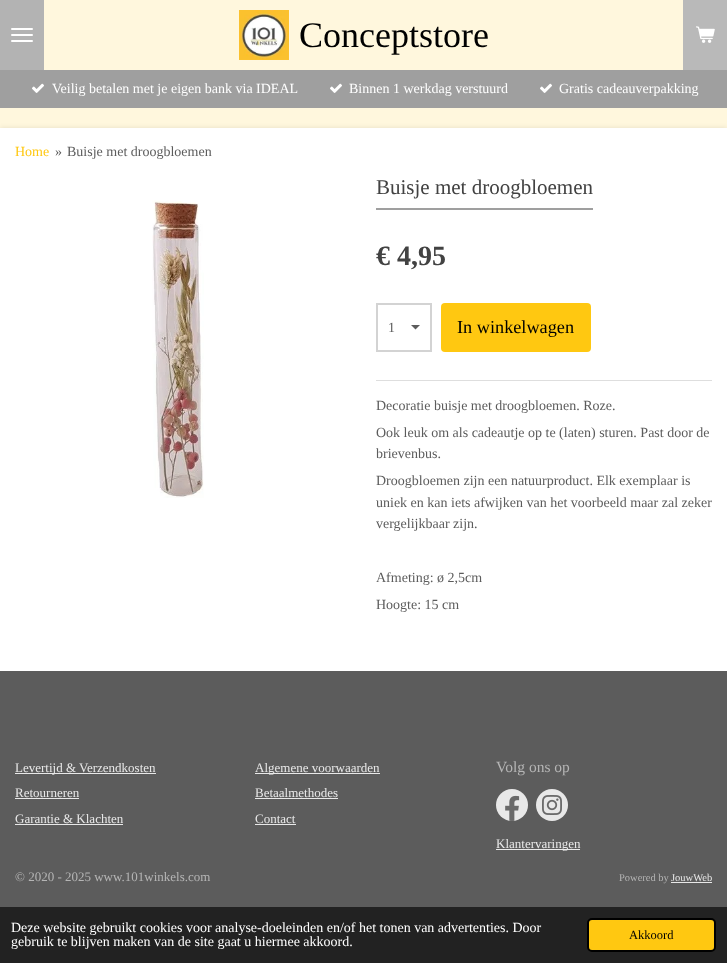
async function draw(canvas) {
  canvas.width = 727
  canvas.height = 963
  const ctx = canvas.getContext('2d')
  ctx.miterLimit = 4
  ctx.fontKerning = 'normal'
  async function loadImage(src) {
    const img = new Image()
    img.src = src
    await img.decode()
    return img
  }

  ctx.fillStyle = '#fff7dd'
  ctx.fillRect(0, 0, 727, 963)
  ctx.fillStyle = '#b3b3b3'
  ctx.fillRect(0, 0, 44, 70)
  ctx.fillStyle = '#fff'
  ctx.beginPath()
  ctx.roundRect(11, 34, 22, 2, 1)
  ctx.fill()
  ctx.beginPath()
  ctx.roundRect(11, 28, 22, 2, 1)
  ctx.fill()
  ctx.beginPath()
  ctx.roundRect(11, 40, 22, 2, 1)
  ctx.fill()
  ctx.drawImage(await loadImage('image0.png'), 239, 10, 50, 50)
  ctx.font = '36px Liberation Serif'
  ctx.fillStyle = '#000'
  ctx.fillText('Conceptstore', 299, 47)
  ctx.fillStyle = '#b9b9b9'
  ctx.fillRect(683, 0, 44, 70)
  ctx.drawImage(await loadImage('image1.png'), 696, 26, 19, 17)
  ctx.fillStyle = '#9f9f9f'
  ctx.fillRect(0, 70, 727, 38)
  ctx.drawImage(await loadImage('image2.png'), 32, 83, 12, 10)
  ctx.font = '14px Liberation Serif'
  ctx.fillStyle = '#fff'
  ctx.fillText('Veilig betalen met je eigen bank via IDEAL', 52, 93)
  ctx.drawImage(await loadImage('image2.png'), 330, 83, 12, 10)
  ctx.fillText('Binnen 1 werkdag verstuurd', 349, 93)
  ctx.drawImage(await loadImage('image2.png'), 540, 83, 12, 10)
  ctx.fillText('Gratis cadeauverpakking', 559, 93)
  ctx.fillStyle = '#0000001a'
  ctx.filter = 'blur(2.5px)'
  ctx.beginPath()
  ctx.rect(0, 128, 727, 785)
  ctx.fill()
  ctx.filter = 'none'
  ctx.fillStyle = '#fff'
  ctx.fillRect(0, 128, 727, 543)
  ctx.fillStyle = '#ffc811'
  ctx.fillText('Home', 15, 156)
  ctx.fillStyle = '#5c5c5c'
  ctx.fillText('»', 55, 156)
  ctx.fillText('Buisje met droogbloemen', 67, 156)
  ctx.fillStyle = '#9f9f9f'
  ctx.fillRect(376, 208, 217, 2)
  ctx.font = '21px Liberation Serif'
  ctx.fillStyle = '#424242'
  ctx.fillText('Buisje met droogbloemen', 376, 194)
  ctx.drawImage(await loadImage('image3.png'), 152, 200, 52, 298)
  ctx.font = 'bold 28px Liberation Serif'
  ctx.fillText('€ 4,95', 376, 265)
  ctx.fillStyle = '#5c5c5c'
  ctx.beginPath()
  ctx.moveTo(415.5, 329.5)
  ctx.lineTo(411, 325)
  ctx.lineTo(420, 325)
  ctx.closePath()
  ctx.fill()
  ctx.strokeStyle = '#d3d3d3'
  ctx.lineWidth = 2
  ctx.strokeRect(377, 304, 54, 47)
  ctx.font = '14px Liberation Serif'
  ctx.fillText('1', 388, 332)
  ctx.fillStyle = '#ffc811'
  ctx.beginPath()
  ctx.roundRect(441, 303, 150, 49, 4)
  ctx.fill()
  ctx.font = '18.25px Liberation Serif'
  ctx.fillStyle = '#000'
  ctx.fillText('In winkelwagen', 457, 333)
  ctx.fillStyle = '#dedede'
  ctx.fillRect(376, 380, 336, 1)
  ctx.font = '14px Liberation Serif'
  ctx.fillStyle = '#5c5c5c'
  ctx.fillText('Decoratie buisje met droogbloemen. Roze.', 376, 410)
  ctx.fillText('Ook leuk om als cadeautje op te (laten) sturen. Past door de', 376, 437)
  ctx.fillText('brievenbus.', 376, 458)
  ctx.fillText('Droogbloemen zijn een natuurproduct. Elk exemplaar is', 376, 485)
  ctx.fillText('uniek en kan iets afwijken van het voorbeeld maar zal zeker', 376, 507)
  ctx.fillText('vergelijkbaar zijn.', 376, 528)
  ctx.fillText('Afmeting: ø 2,5cm', 376, 582)
  ctx.fillText('Hoogte: 15 cm', 376, 609)
  ctx.fillRect(0, 671, 727, 236)
  ctx.fillStyle = '#e8e8e8'
  ctx.fillRect(15, 773, 141, 1)
  ctx.font = '13px Liberation Serif'
  ctx.fillText('Levertijd & Verzendkosten', 15, 772)
  ctx.fillText('Retourneren', 15, 797)
  ctx.fillRect(15, 798, 64, 1)
  ctx.fillText('Garantie & Klachten', 15, 823)
  ctx.fillRect(15, 824, 108, 1)
  ctx.fillRect(255, 773, 125, 1)
  ctx.fillText('Algemene voorwaarden', 255, 772)
  ctx.fillText('Betaalmethodes', 255, 797)
  ctx.fillRect(255, 798, 83, 1)
  ctx.fillText('Contact', 255, 823)
  ctx.fillRect(255, 824, 41, 1)
  ctx.font = '15.5px Liberation Serif'
  ctx.fillStyle = '#b5b5b5'
  ctx.fillText('Volg ons op', 496, 772)
  ctx.fillStyle = '#e8e8e8'
  ctx.beginPath()
  ctx.arc(512, 805, 16, 0, 2 * Math.PI)
  ctx.fill()
  ctx.drawImage(await loadImage('image4.png'), 505, 795, 15, 26)
  ctx.beginPath()
  ctx.arc(552, 805, 16, 0, 2 * Math.PI)
  ctx.fill()
  ctx.drawImage(await loadImage('image5.png'), 542, 795, 20, 20)
  ctx.fillRect(496, 849, 84, 1)
  ctx.font = '13px Liberation Serif'
  ctx.fillText('Klantervaringen', 496, 848)
  ctx.fillStyle = '#b5b5b5'
  ctx.fillText('© 2020 - 2025 www.101winkels.com', 15, 881)
  ctx.font = '10.5px Liberation Serif'
  ctx.fillText('Powered by', 619, 881)
  ctx.fillStyle = '#e8e8e8'
  ctx.fillRect(671, 882, 41, 1)
  ctx.fillText('JouwWeb', 671, 881)
  ctx.fillStyle = '#222'
  ctx.fillRect(0, 907, 727, 56)
  ctx.font = '14px Liberation Serif'
  ctx.fillStyle = '#fff'
  ctx.fillText('Deze website gebruikt cookies voor analyse-doeleinden en/of het tonen van advertenties. Door', 11, 932)
  ctx.fillText('gebruik te blijven maken van de site gaat u hiermee akkoord.', 11, 946)
  ctx.fillStyle = '#ffc811'
  ctx.beginPath()
  ctx.roundRect(588, 919, 127, 32, 4)
  ctx.fill()
  ctx.strokeStyle = '#000'
  ctx.stroke()
  ctx.font = '12.5px Liberation Serif'
  ctx.fillStyle = '#000'
  ctx.fillText('Akkoord', 629, 939)
}

draw(document.querySelector('canvas'))
